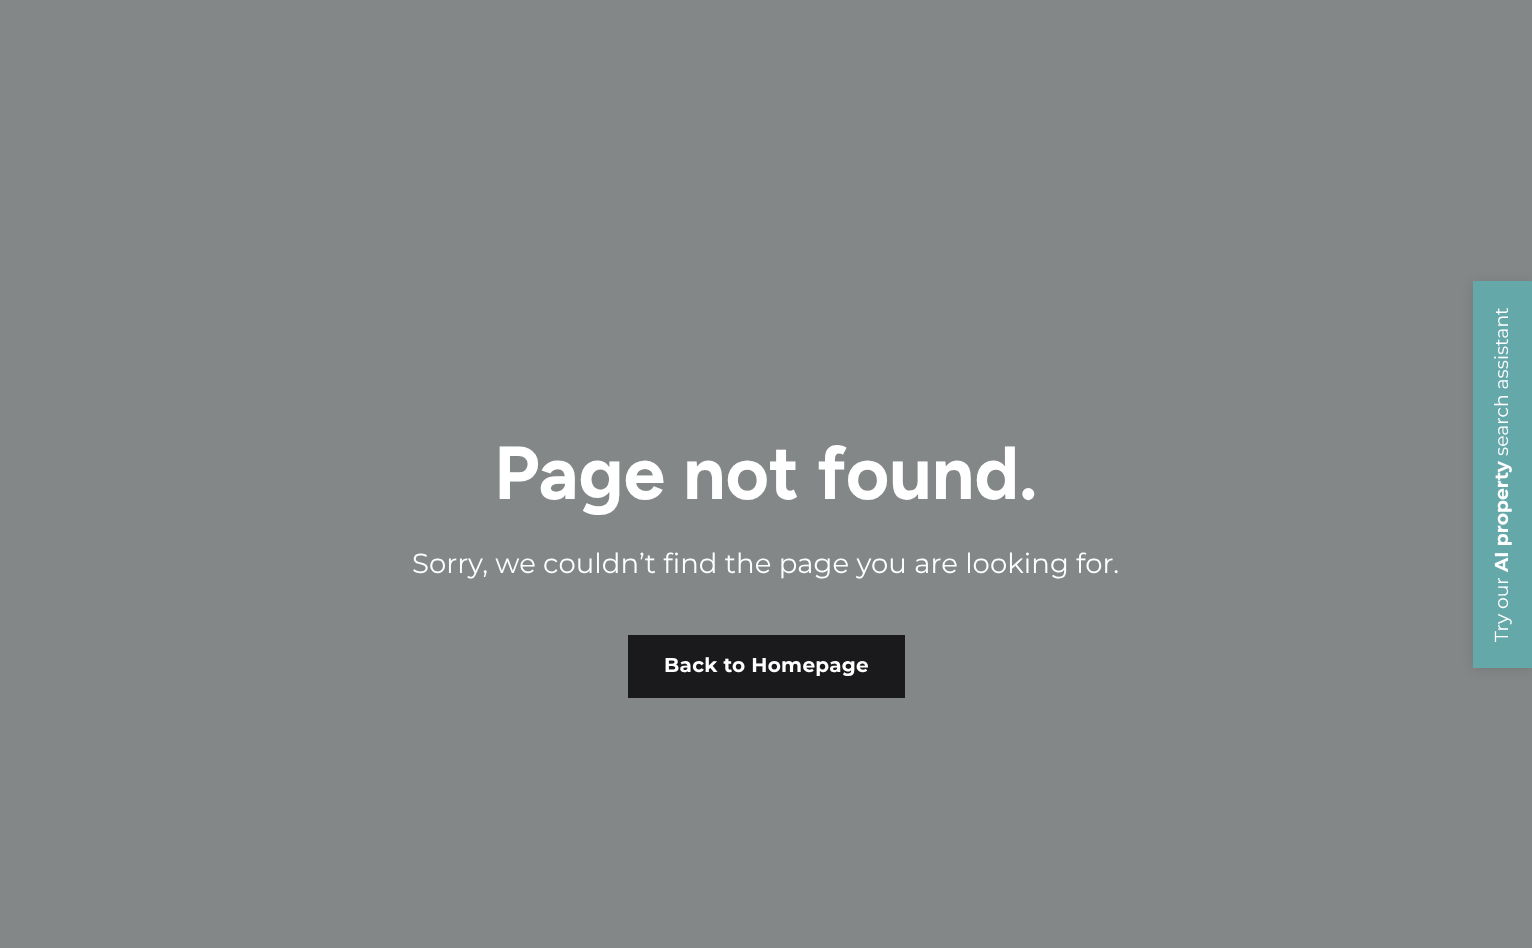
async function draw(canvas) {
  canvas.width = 1532
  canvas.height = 948
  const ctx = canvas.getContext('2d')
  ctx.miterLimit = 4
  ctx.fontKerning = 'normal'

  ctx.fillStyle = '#838788'
  ctx.fillRect(0, 0, 1532, 948)
  ctx.font = 'bold 75px Figtree'
  ctx.fillStyle = '#fff'
  ctx.fillText('Page not found.', 494, 499)
  ctx.letterSpacing = '0.07px'
  ctx.font = '27.5px Montserrat'
  ctx.fillText('Sorry, we couldn’t find the page you are looking for.', 412, 573)
  ctx.strokeStyle = '#1a1a1d'
  ctx.lineWidth = 3
  ctx.strokeRect(629.5, 636.5, 274, 60)
  ctx.fillStyle = '#1a1a1d'
  ctx.fillRect(631, 638, 271, 57)
  ctx.letterSpacing = '0.25px'
  ctx.font = 'bold 20px Montserrat'
  ctx.fillStyle = '#fff'
  ctx.fillText('Back to Homepage', 664, 672)
  ctx.fillStyle = '#0000001a'
  ctx.filter = 'blur(6px)'
  ctx.beginPath()
  ctx.rect(1473, 283, 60, 386)
  ctx.fill()
  ctx.filter = 'none'
  ctx.fillStyle = '#65a8aa'
  ctx.fillRect(1473, 281, 59, 387)
  ctx.letterSpacing = '0px'
  ctx.font = '18.75px Montserrat'
  ctx.fillStyle = '#fff'
  ctx.save()
  ctx.translate(1508, 456)
  ctx.rotate(-90 * Math.PI / 180)
  ctx.fillText('search assistant', 0, 0)
  ctx.restore()
  ctx.font = 'bold 18.75px Montserrat'
  ctx.save()
  ctx.translate(1508, 572)
  ctx.rotate(-90 * Math.PI / 180)
  ctx.fillText('AI property', 0, 0)
  ctx.restore()
  ctx.font = '18.75px Montserrat'
  ctx.save()
  ctx.translate(1508, 642)
  ctx.rotate(-90 * Math.PI / 180)
  ctx.fillText('Try our', 0, 0)
  ctx.restore()
}

draw(document.querySelector('canvas'))
